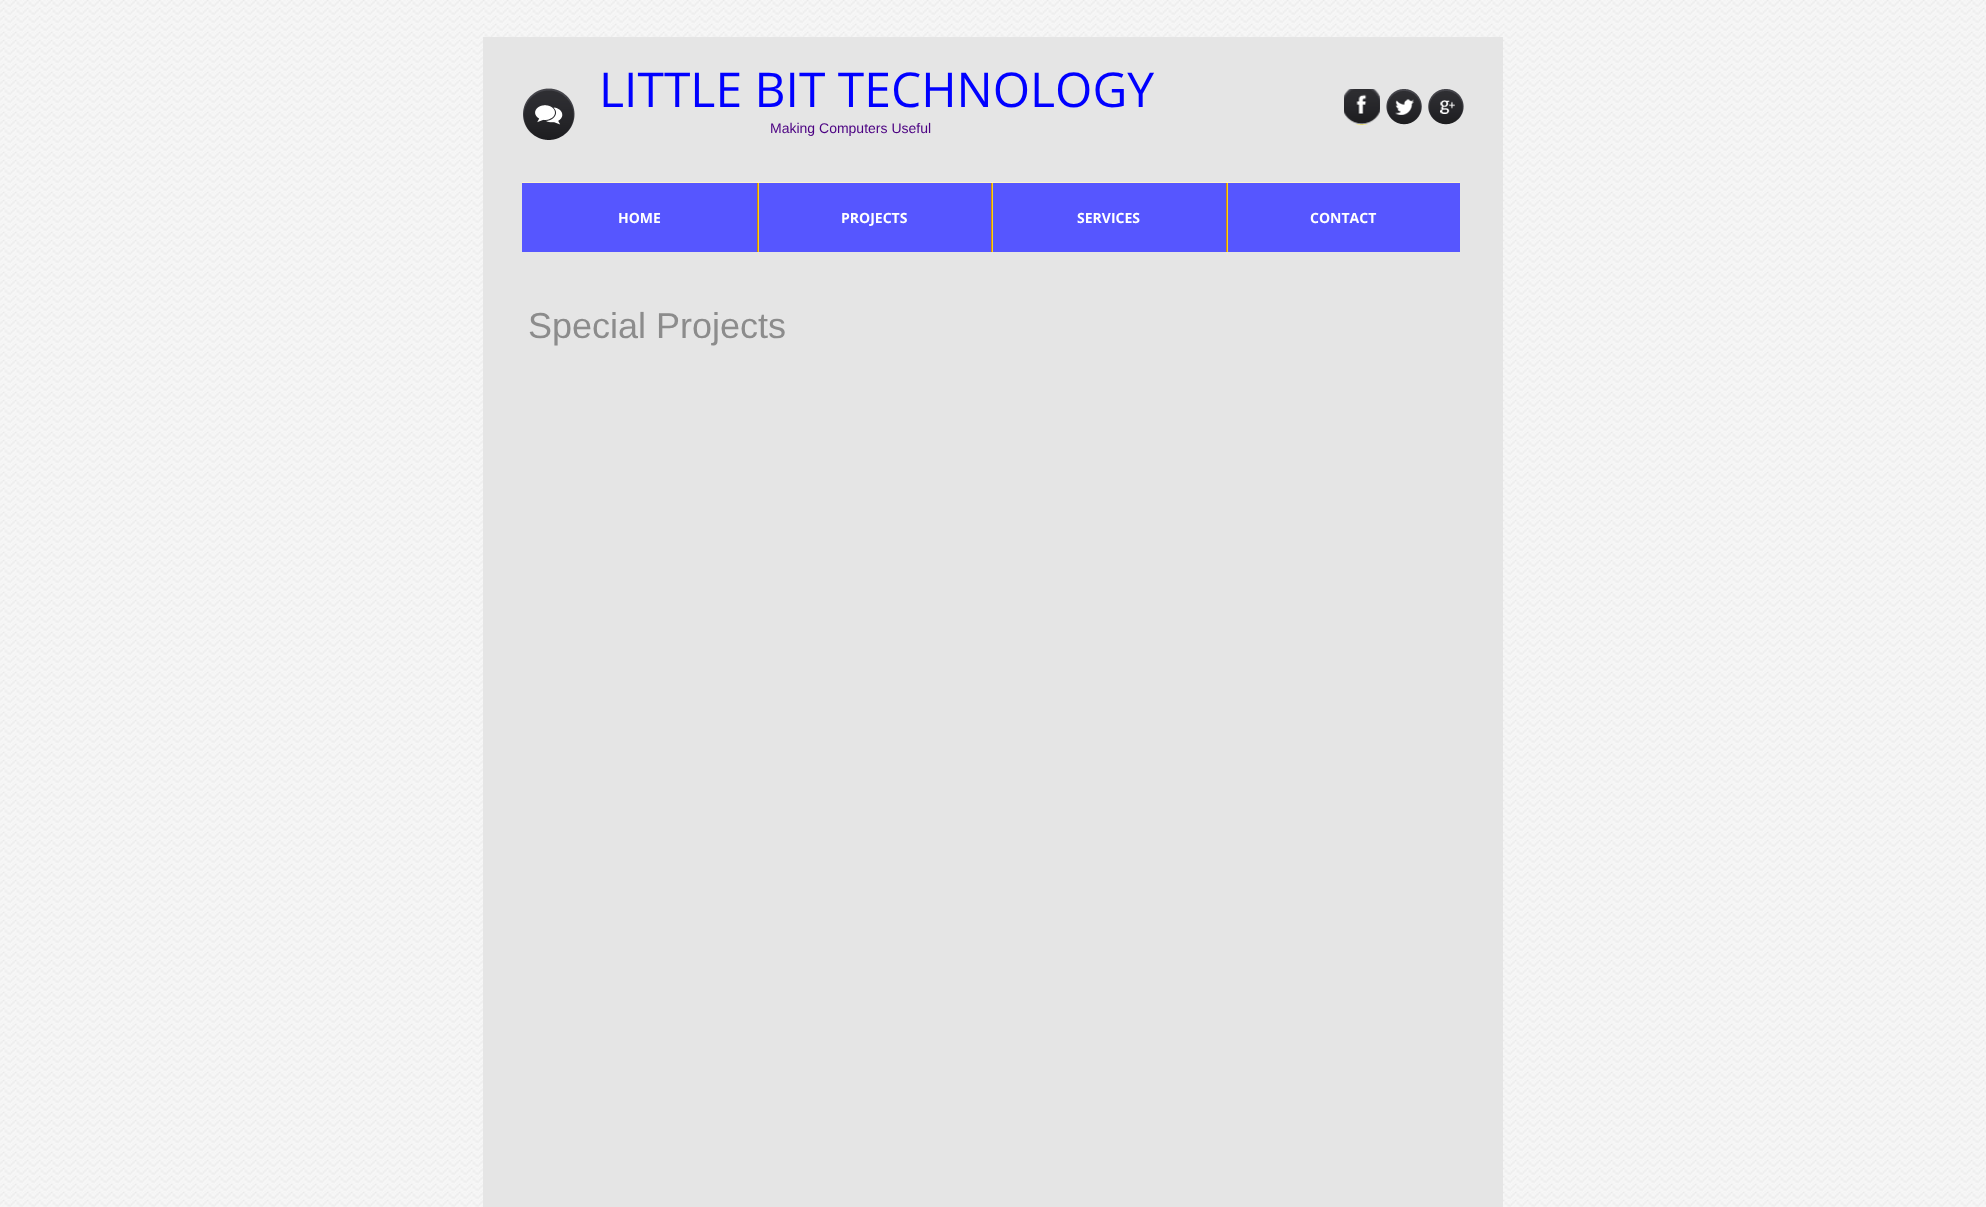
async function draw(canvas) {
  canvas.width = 1986
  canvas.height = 1207
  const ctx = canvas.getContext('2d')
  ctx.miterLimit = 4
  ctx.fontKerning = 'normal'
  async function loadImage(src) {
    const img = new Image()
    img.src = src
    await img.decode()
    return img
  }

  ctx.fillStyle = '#fff'
  ctx.fillRect(0, 0, 1986, 1207)
  ctx.drawImage(await loadImage('image0.png'), 0, 0, 1986, 1207)
  ctx.fillStyle = '#e5e5e5'
  ctx.fillRect(483, 37, 1020, 1170)
  ctx.drawImage(await loadImage('image1.png'), 523, 88, 52, 52)
  ctx.font = '48px Open Sans'
  ctx.fillStyle = '#00f'
  ctx.fillText('LITTLE BIT TECHNOLOGY', 599, 107)
  ctx.font = '14px Liberation Sans'
  ctx.fillStyle = '#4b0082'
  ctx.fillText('Making Computers Useful', 770, 133)
  ctx.drawImage(await loadImage('image2.png'), 1344, 89, 36, 36)
  ctx.drawImage(await loadImage('image3.png'), 1386, 89, 36, 36)
  ctx.drawImage(await loadImage('image4.png'), 1428, 89, 36, 36)
  ctx.fillStyle = '#fbf2d0'
  ctx.fillRect(522, 182, 938, 1)
  ctx.fillStyle = '#5656ff'
  ctx.fillRect(522, 183, 235, 69)
  ctx.font = 'bold 14px Open Sans'
  ctx.fillStyle = '#fff'
  ctx.fillText('HOME', 618, 223)
  ctx.fillStyle = '#5656ff'
  ctx.fillRect(759, 183, 232, 69)
  ctx.fillStyle = '#f3d71d'
  ctx.fillRect(758, 183, 1, 69)
  ctx.fillStyle = '#d9850c'
  ctx.fillRect(757, 183, 1, 69)
  ctx.fillStyle = '#fff'
  ctx.fillText('PROJECTS', 841, 223)
  ctx.fillStyle = '#5656ff'
  ctx.fillRect(993, 183, 233, 69)
  ctx.fillStyle = '#f3d71d'
  ctx.fillRect(992, 183, 1, 69)
  ctx.fillStyle = '#d9850c'
  ctx.fillRect(991, 183, 1, 69)
  ctx.fillStyle = '#fff'
  ctx.fillText('SERVICES', 1077, 223)
  ctx.fillStyle = '#5656ff'
  ctx.fillRect(1228, 183, 232, 69)
  ctx.fillStyle = '#f3d71d'
  ctx.fillRect(1227, 183, 1, 69)
  ctx.fillStyle = '#d9850c'
  ctx.fillRect(1226, 183, 1, 69)
  ctx.fillStyle = '#fff'
  ctx.fillText('CONTACT', 1310, 223)
  ctx.font = '36px Liberation Sans'
  ctx.fillStyle = '#8c8c8c'
  ctx.fillText('Special Projects', 528, 338)
}

draw(document.querySelector('canvas'))
